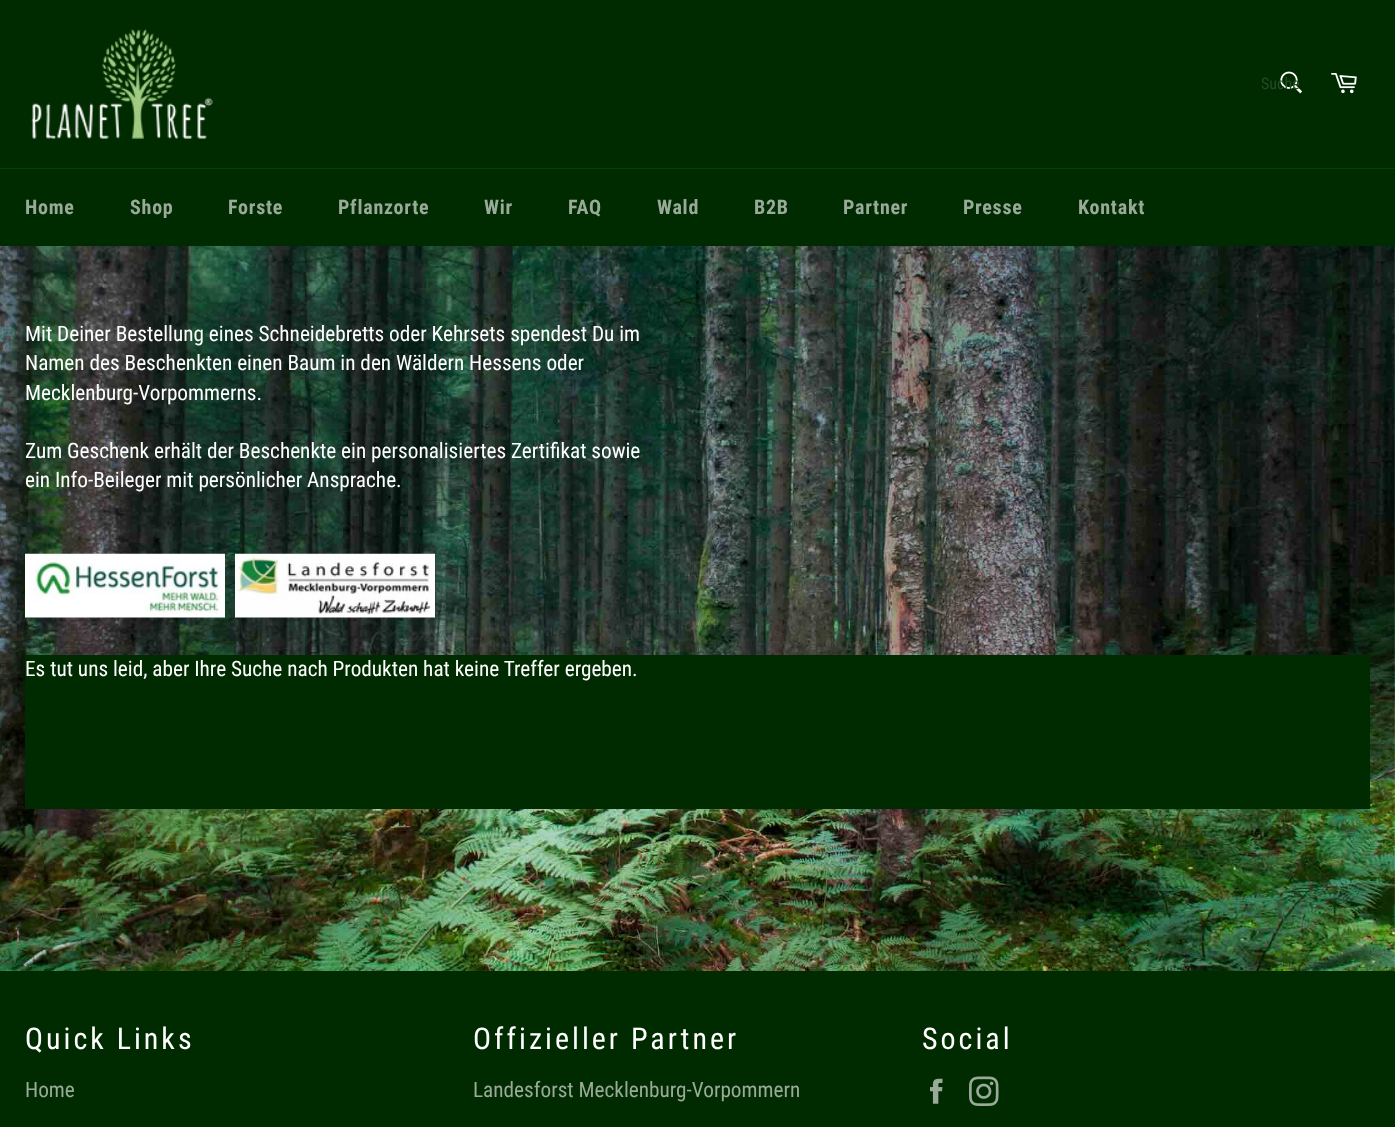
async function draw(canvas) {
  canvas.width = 1395
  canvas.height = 1127
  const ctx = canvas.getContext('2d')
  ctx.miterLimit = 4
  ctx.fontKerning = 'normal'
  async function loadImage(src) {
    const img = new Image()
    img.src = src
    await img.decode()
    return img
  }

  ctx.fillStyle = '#fff'
  ctx.fillRect(0, 0, 1395, 1127)
  ctx.fillStyle = '#002b01'
  ctx.fillRect(0, 0, 1395, 168)
  ctx.drawImage(await loadImage('image0.png'), 31, 28, 182, 111)
  ctx.drawImage(await loadImage('image1.png'), 1280, 71, 22, 23)
  ctx.font = '16px Roboto Condensed'
  ctx.fillStyle = '#264b27'
  ctx.fillText('Suche', 1261, 89)
  ctx.drawImage(await loadImage('image2.png'), 1331, 73, 26, 21)
  ctx.fillStyle = '#002b01'
  ctx.fillRect(0, 169, 1395, 77)
  ctx.fillStyle = '#004502'
  ctx.fillRect(0, 168, 1395, 1)
  ctx.letterSpacing = '0.75px'
  ctx.font = 'bold 20px Roboto Condensed'
  ctx.fillStyle = '#9a9'
  ctx.fillText('Home', 25, 214)
  ctx.fillText('Shop', 130, 214)
  ctx.fillText('Forste', 228, 214)
  ctx.fillText('Pflanzorte', 338, 214)
  ctx.fillText('Wir', 484, 214)
  ctx.fillText('FAQ', 568, 214)
  ctx.fillText('Wald', 657, 214)
  ctx.fillText('B2B', 754, 214)
  ctx.fillText('Partner', 843, 214)
  ctx.fillText('Presse', 963, 214)
  ctx.fillText('Kontakt', 1078, 214)
  ctx.drawImage(await loadImage('image3.png'), 0, 246, 1395, 725)
  ctx.letterSpacing = '0px'
  ctx.font = '21.25px Roboto Condensed'
  ctx.fillStyle = '#fff'
  ctx.fillText('Mit Deiner Bestellung eines Schneidebretts oder Kehrsets spendest Du im', 25, 341)
  ctx.fillText('Namen des Beschenkten einen Baum in den Wäldern Hessens oder', 25, 370)
  ctx.fillText('Mecklenburg-Vorpommerns.', 25, 400)
  ctx.fillText('Zum Geschenk erhält der Beschenkte ein personalisiertes Zertifikat sowie', 25, 458)
  ctx.fillText('ein Info-Beileger mit persönlicher Ansprache.', 25, 487)
  ctx.drawImage(await loadImage('image4.png'), 25, 553, 200, 65)
  ctx.drawImage(await loadImage('image5.png'), 235, 553, 200, 65)
  ctx.fillStyle = '#002b01'
  ctx.fillRect(25, 655, 1345, 154)
  ctx.fillStyle = '#fff'
  ctx.fillText('Es tut uns leid, aber Ihre Suche nach Produkten hat keine Treffer ergeben.', 25, 676)
  ctx.fillStyle = '#002b01'
  ctx.fillRect(0, 971, 1395, 156)
  ctx.letterSpacing = '3px'
  ctx.font = '30px Roboto Condensed'
  ctx.fillStyle = '#fff'
  ctx.fillText('Quick Links', 25, 1049)
  ctx.letterSpacing = '0px'
  ctx.font = '21.25px Roboto Condensed'
  ctx.fillStyle = '#9a9'
  ctx.fillText('Home', 25, 1097)
  ctx.letterSpacing = '3px'
  ctx.font = '30px Roboto Condensed'
  ctx.fillStyle = '#fff'
  ctx.fillText('Offizieller Partner', 473, 1049)
  ctx.letterSpacing = '0px'
  ctx.font = '21.25px Roboto Condensed'
  ctx.fillStyle = '#9a9'
  ctx.fillText('Landesforst Mecklenburg-Vorpommern', 473, 1097)
  ctx.letterSpacing = '3px'
  ctx.font = '30px Roboto Condensed'
  ctx.fillStyle = '#fff'
  ctx.fillText('Social', 922, 1049)
  ctx.drawImage(await loadImage('image6.png'), 930, 1078, 13, 26)
  ctx.drawImage(await loadImage('image7.png'), 969, 1076, 30, 30)
}

draw(document.querySelector('canvas'))
